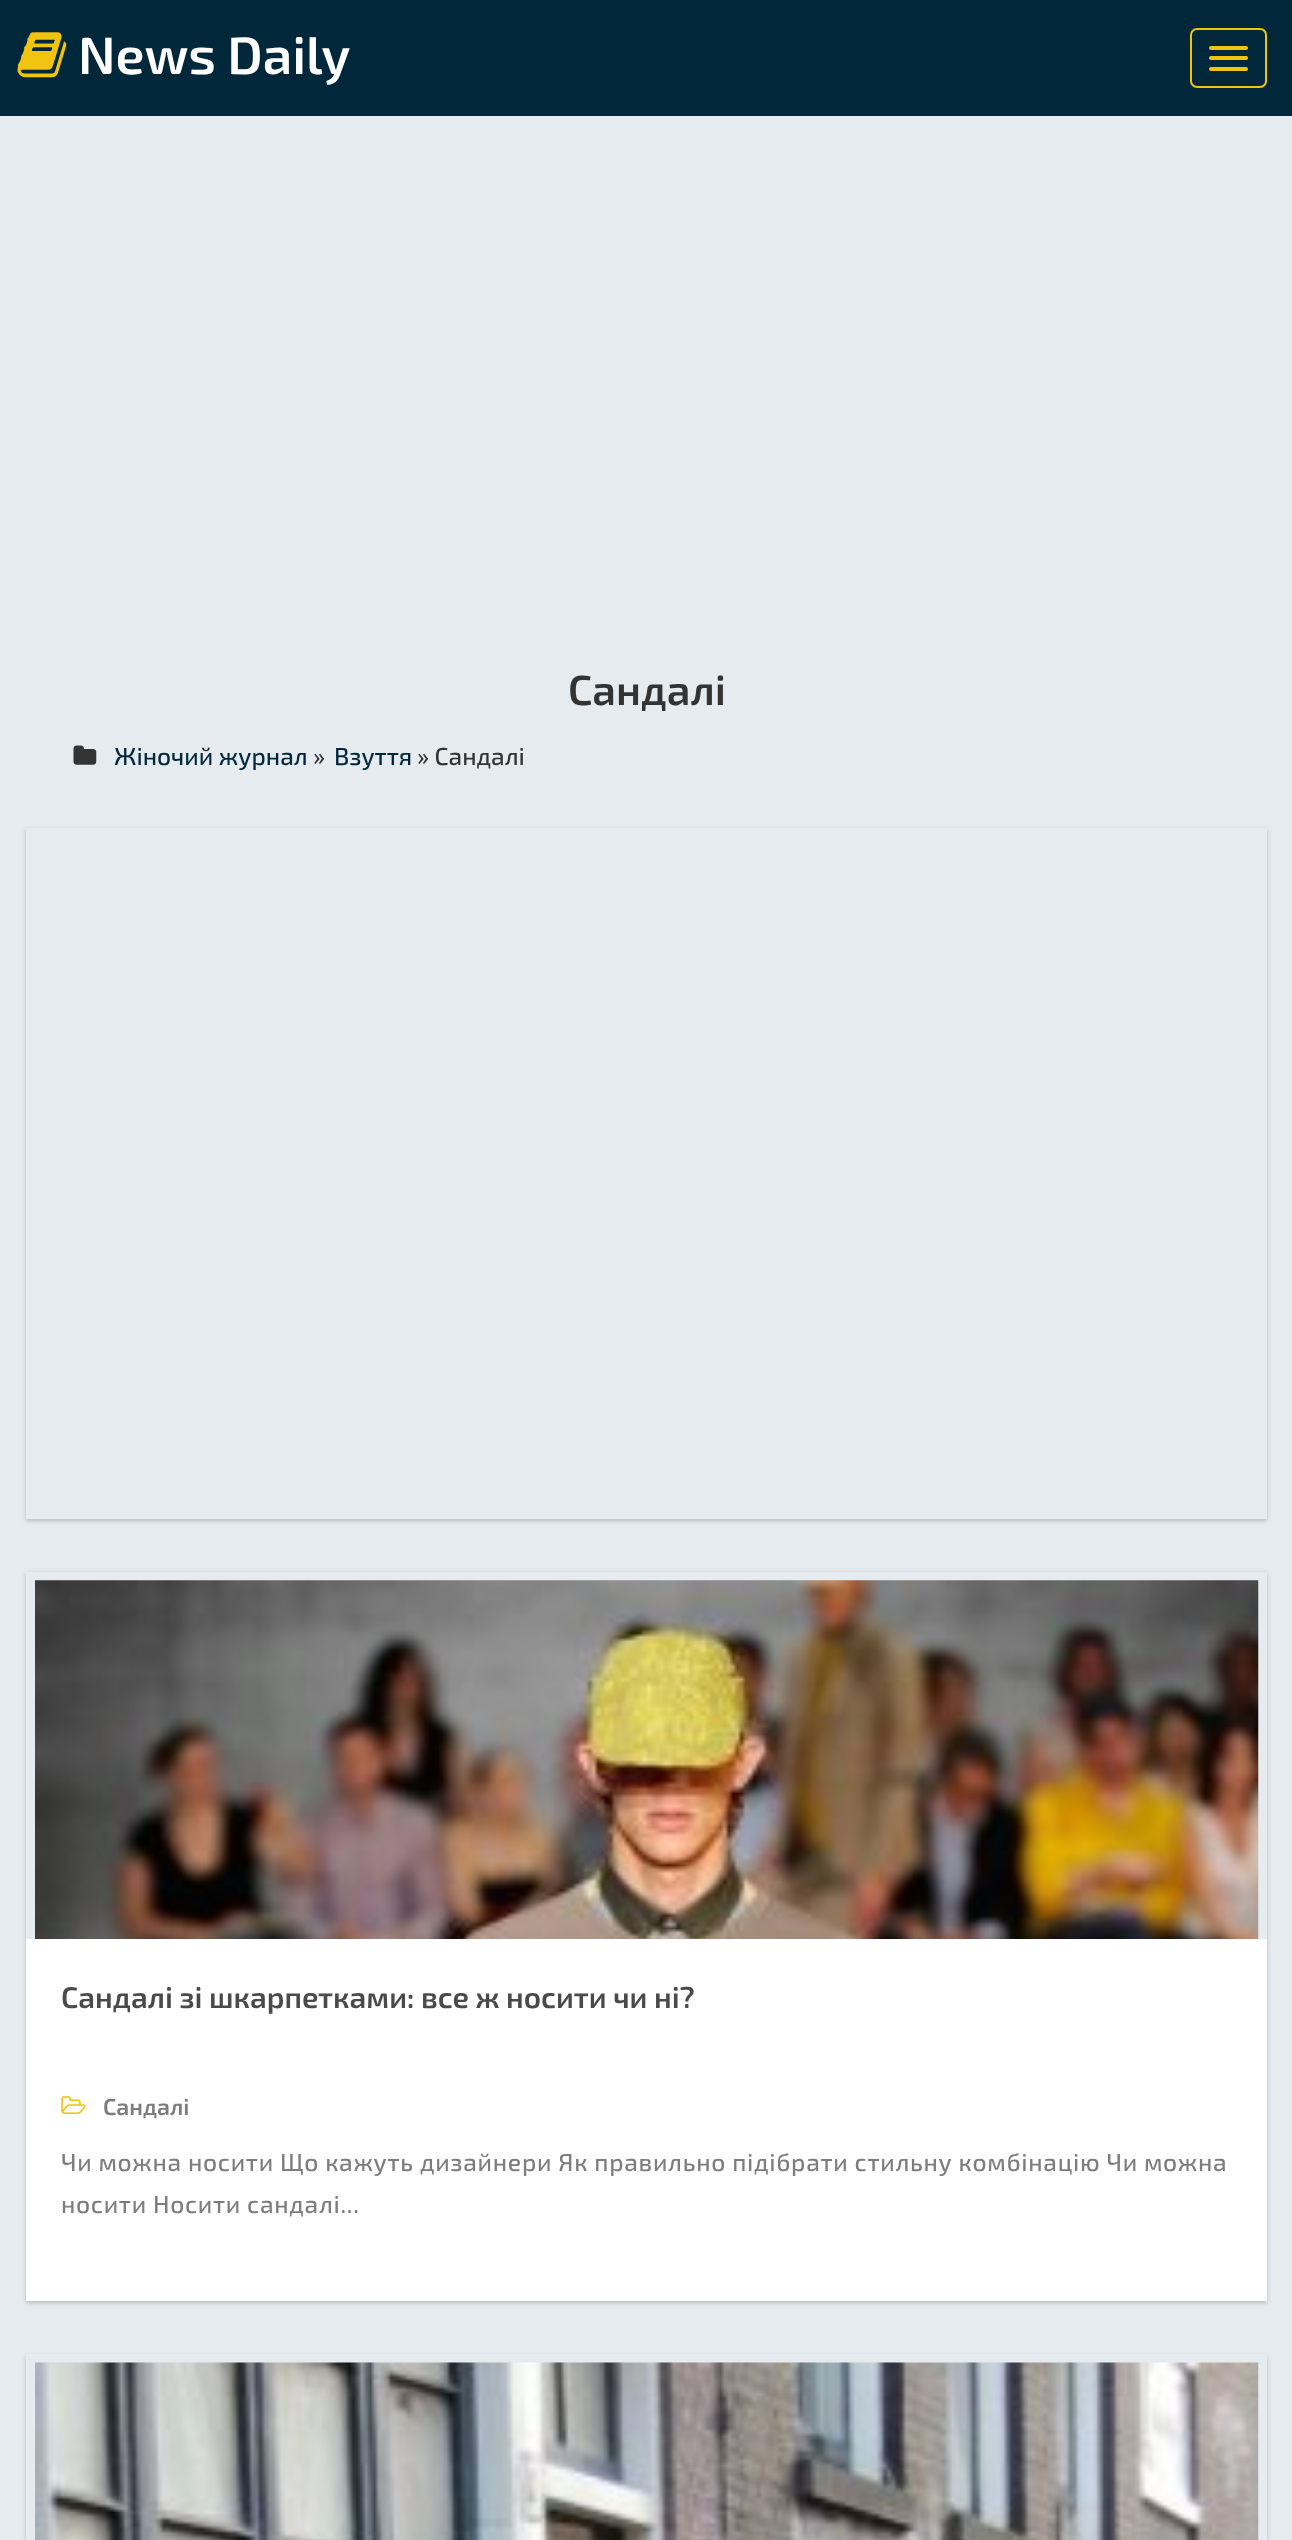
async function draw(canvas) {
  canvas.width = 1292
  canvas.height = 2540
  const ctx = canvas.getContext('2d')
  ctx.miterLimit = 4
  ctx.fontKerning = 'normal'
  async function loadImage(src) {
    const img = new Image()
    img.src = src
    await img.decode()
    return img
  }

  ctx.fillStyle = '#e5ebef'
  ctx.fillRect(0, 0, 1292, 2540)
  ctx.fillStyle = '#01273a'
  ctx.fillRect(0, 0, 1292, 116)
  ctx.drawImage(await loadImage('image0.png'), 17, 32, 50, 46)
  ctx.font = '600 52.5px "Exo 2"'
  ctx.fillStyle = '#fff'
  ctx.fillText('News Daily', 78, 74)
  ctx.beginPath()
  ctx.roundRect(1191, 29, 75, 58, 6)
  ctx.strokeStyle = '#f1c40f'
  ctx.lineWidth = 2
  ctx.stroke()
  ctx.fillStyle = '#f1c40f'
  ctx.beginPath()
  ctx.roundRect(1209, 46, 39, 4, 2)
  ctx.fill()
  ctx.beginPath()
  ctx.roundRect(1209, 56, 39, 4, 2)
  ctx.fill()
  ctx.beginPath()
  ctx.roundRect(1209, 67, 39, 4, 2)
  ctx.fill()
  ctx.font = '600 42px "Exo 2"'
  ctx.fillStyle = '#333'
  ctx.fillText('Сандалі', 568, 705)
  ctx.drawImage(await loadImage('image1.png'), 73, 745, 24, 20)
  ctx.font = '500 24.5px "Exo 2"'
  ctx.fillStyle = '#01273a'
  ctx.fillText('Жіночий журнал', 114, 765)
  ctx.fillStyle = '#333'
  ctx.fillText('»', 313, 765)
  ctx.fillStyle = '#01273a'
  ctx.fillText('Взуття', 334, 765)
  ctx.fillStyle = '#333'
  ctx.fillText('» Сандалі', 417, 765)
  ctx.save()
  ctx.beginPath()
  ctx.moveTo(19, 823)
  ctx.lineTo(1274, 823)
  ctx.lineTo(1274, 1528)
  ctx.lineTo(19, 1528)
  ctx.closePath()
  ctx.moveTo(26, 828)
  ctx.lineTo(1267, 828)
  ctx.lineTo(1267, 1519)
  ctx.lineTo(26, 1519)
  ctx.closePath()
  ctx.clip('evenodd')
  ctx.fillStyle = '#00000033'
  ctx.filter = 'blur(2px)'
  ctx.beginPath()
  ctx.rect(26, 830, 1241, 691)
  ctx.fill()
  ctx.filter = 'none'
  ctx.restore()
  ctx.save()
  ctx.beginPath()
  ctx.moveTo(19, 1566)
  ctx.lineTo(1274, 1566)
  ctx.lineTo(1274, 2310)
  ctx.lineTo(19, 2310)
  ctx.closePath()
  ctx.moveTo(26, 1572)
  ctx.lineTo(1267, 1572)
  ctx.lineTo(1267, 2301)
  ctx.lineTo(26, 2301)
  ctx.closePath()
  ctx.clip('evenodd')
  ctx.fillStyle = '#00000033'
  ctx.filter = 'blur(2px)'
  ctx.beginPath()
  ctx.rect(26, 1573, 1241, 730)
  ctx.fill()
  ctx.filter = 'none'
  ctx.restore()
  ctx.drawImage(await loadImage('image2.png'), 35, 1580, 1224, 359)
  ctx.fillStyle = '#fff'
  ctx.fillRect(26, 1939, 1241, 362)
  ctx.font = '600 29.75px "Exo 2"'
  ctx.fillStyle = '#4a4a4a'
  ctx.fillText('Сандалі зі шкарпетками: все ж носити чи ні?', 61, 2008)
  ctx.drawImage(await loadImage('image3.png'), 61, 2096, 25, 18)
  ctx.font = '600 23px "Exo 2"'
  ctx.fillStyle = '#7d7d7d'
  ctx.fillText('Сандалі', 103, 2115)
  ctx.letterSpacing = '0.7px'
  ctx.font = '500 24.5px "Exo 2"'
  ctx.fillText('Чи можна носити Що кажуть дизайнери Як правильно підібрати стильну комбінацію Чи можна', 61, 2171)
  ctx.fillText('носити Носити сандалі...', 61, 2213)
  ctx.save()
  ctx.beginPath()
  ctx.moveTo(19, 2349)
  ctx.lineTo(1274, 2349)
  ctx.lineTo(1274, 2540)
  ctx.lineTo(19, 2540)
  ctx.closePath()
  ctx.moveTo(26, 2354)
  ctx.lineTo(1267, 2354)
  ctx.lineTo(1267, 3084)
  ctx.lineTo(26, 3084)
  ctx.closePath()
  ctx.clip('evenodd')
  ctx.fillStyle = '#00000033'
  ctx.filter = 'blur(2px)'
  ctx.beginPath()
  ctx.rect(26, 2356, 1241, 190)
  ctx.fill()
  ctx.filter = 'none'
  ctx.restore()
  ctx.drawImage(await loadImage('image4.png'), 35, 2362, 1224, 178)
}

draw(document.querySelector('canvas'))
